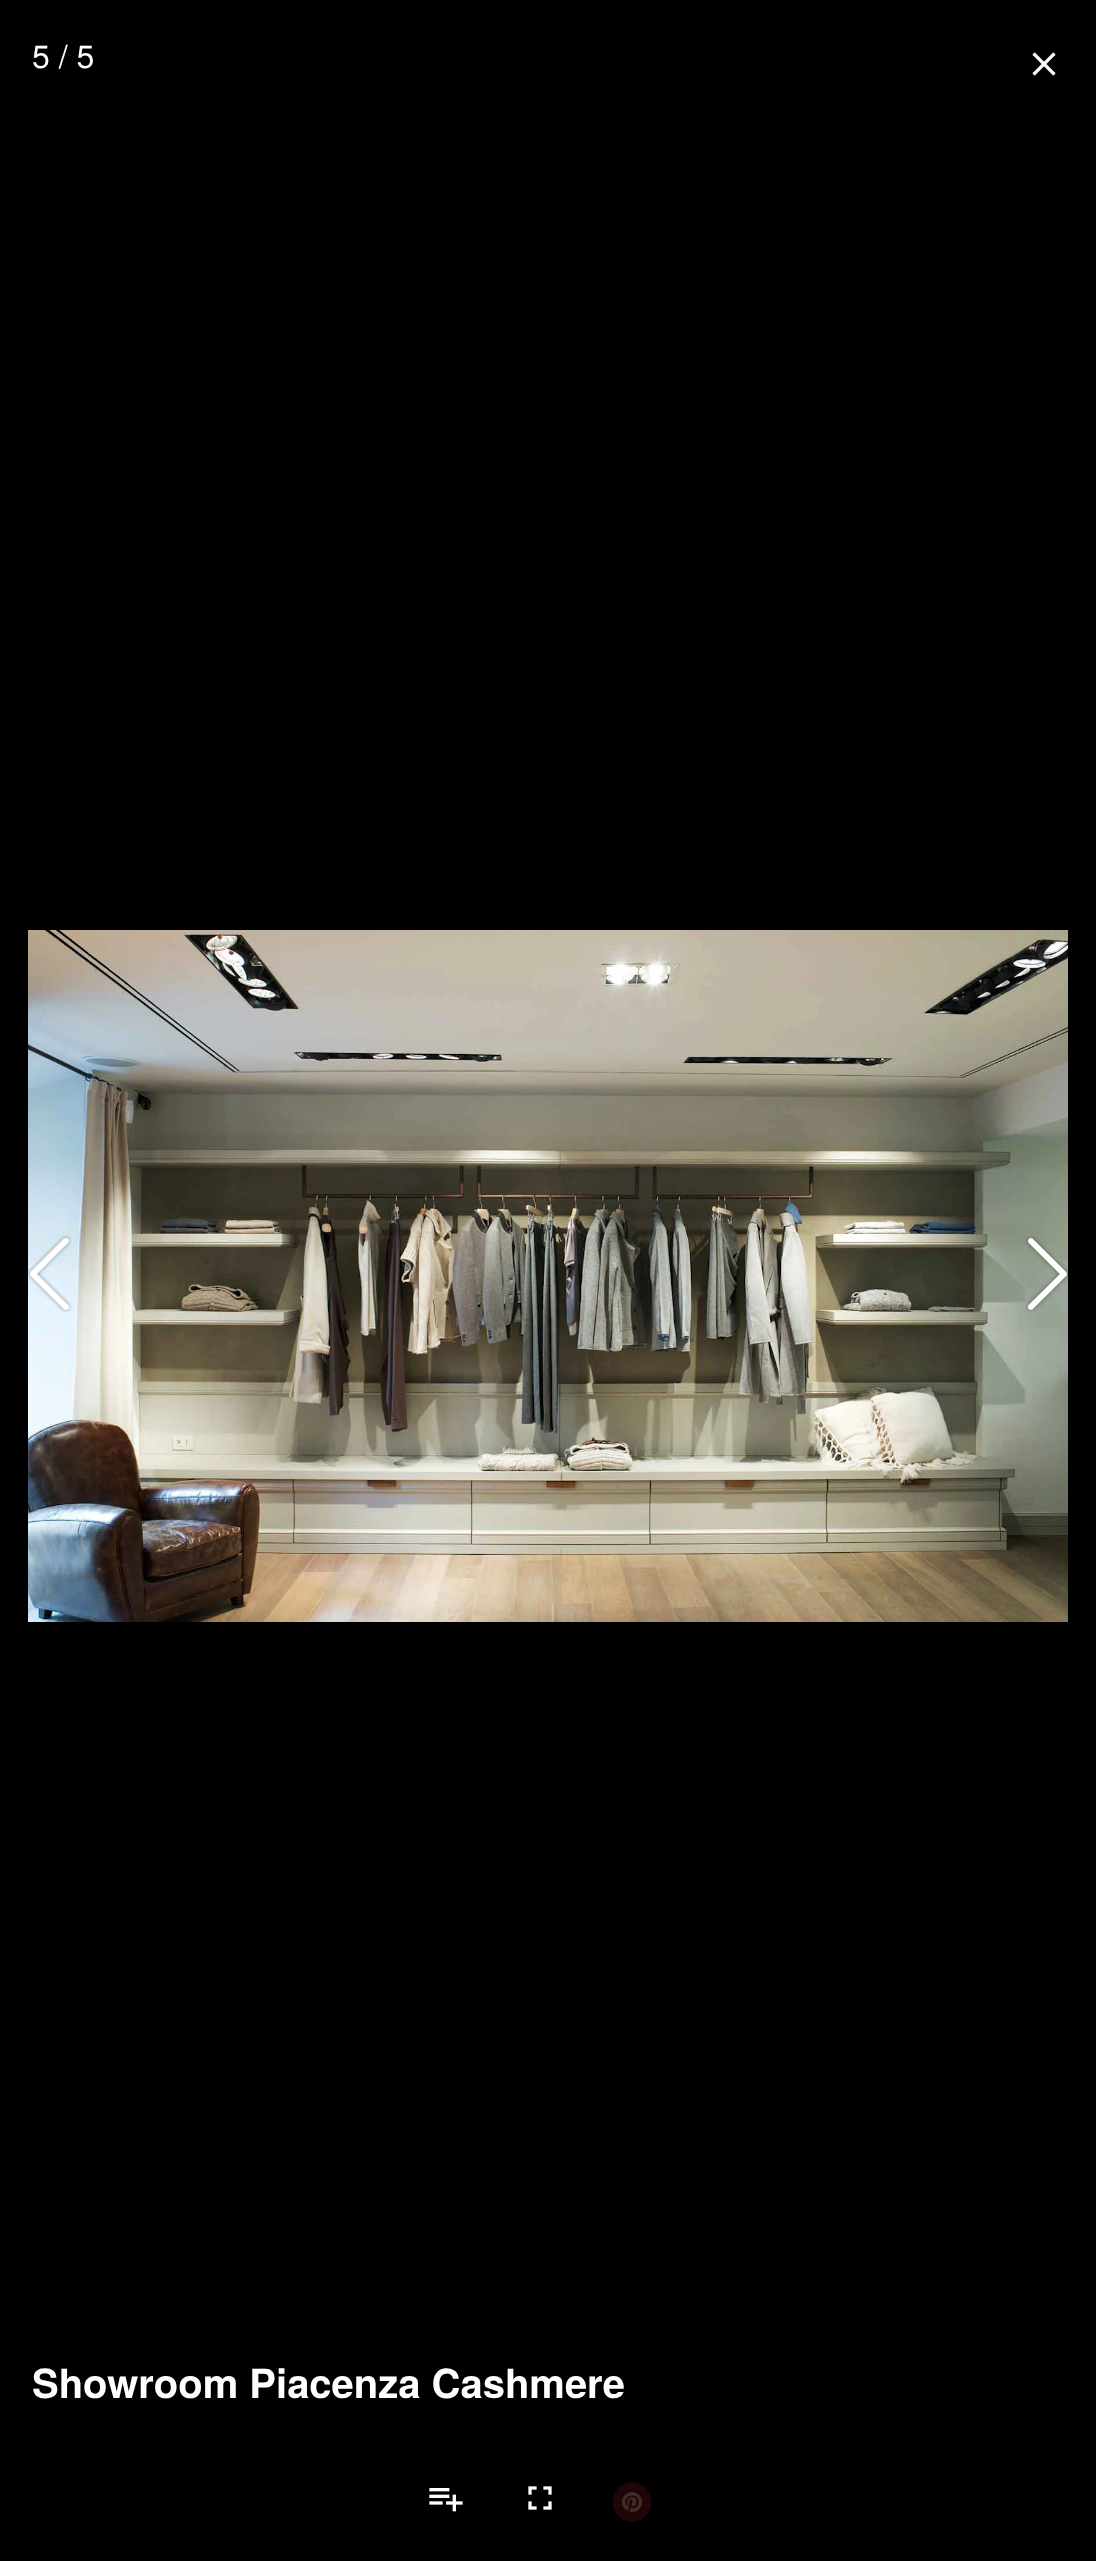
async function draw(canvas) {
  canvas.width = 1096
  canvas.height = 2561
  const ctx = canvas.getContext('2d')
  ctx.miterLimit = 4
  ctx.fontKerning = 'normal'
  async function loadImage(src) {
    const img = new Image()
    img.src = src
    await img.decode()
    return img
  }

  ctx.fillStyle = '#000'
  ctx.fillRect(0, 0, 1096, 2561)
  ctx.font = '32px TeX Gyre Heros'
  ctx.fillStyle = '#fff'
  ctx.fillText('5 / 5', 32, 68)
  ctx.drawImage(await loadImage('image0.png'), 1032, 52, 24, 24)
  ctx.drawImage(await loadImage('image1.png'), 28, 930, 1040, 692)
  ctx.drawImage(await loadImage('image2.png'), 28, 1235, 44, 78)
  ctx.drawImage(await loadImage('image3.png'), 1025, 1235, 43, 78)
  ctx.font = 'bold 40px TeX Gyre Heros'
  ctx.fillText('Showroom Piacenza Cashmere', 32, 2398)
  ctx.drawImage(await loadImage('image4.png'), 429, 2488, 34, 24)
  ctx.drawImage(await loadImage('image5.png'), 528, 2486, 24, 24)
  ctx.drawImage(await loadImage('image6.png'), 612, 2482, 40, 40)
}

draw(document.querySelector('canvas'))
